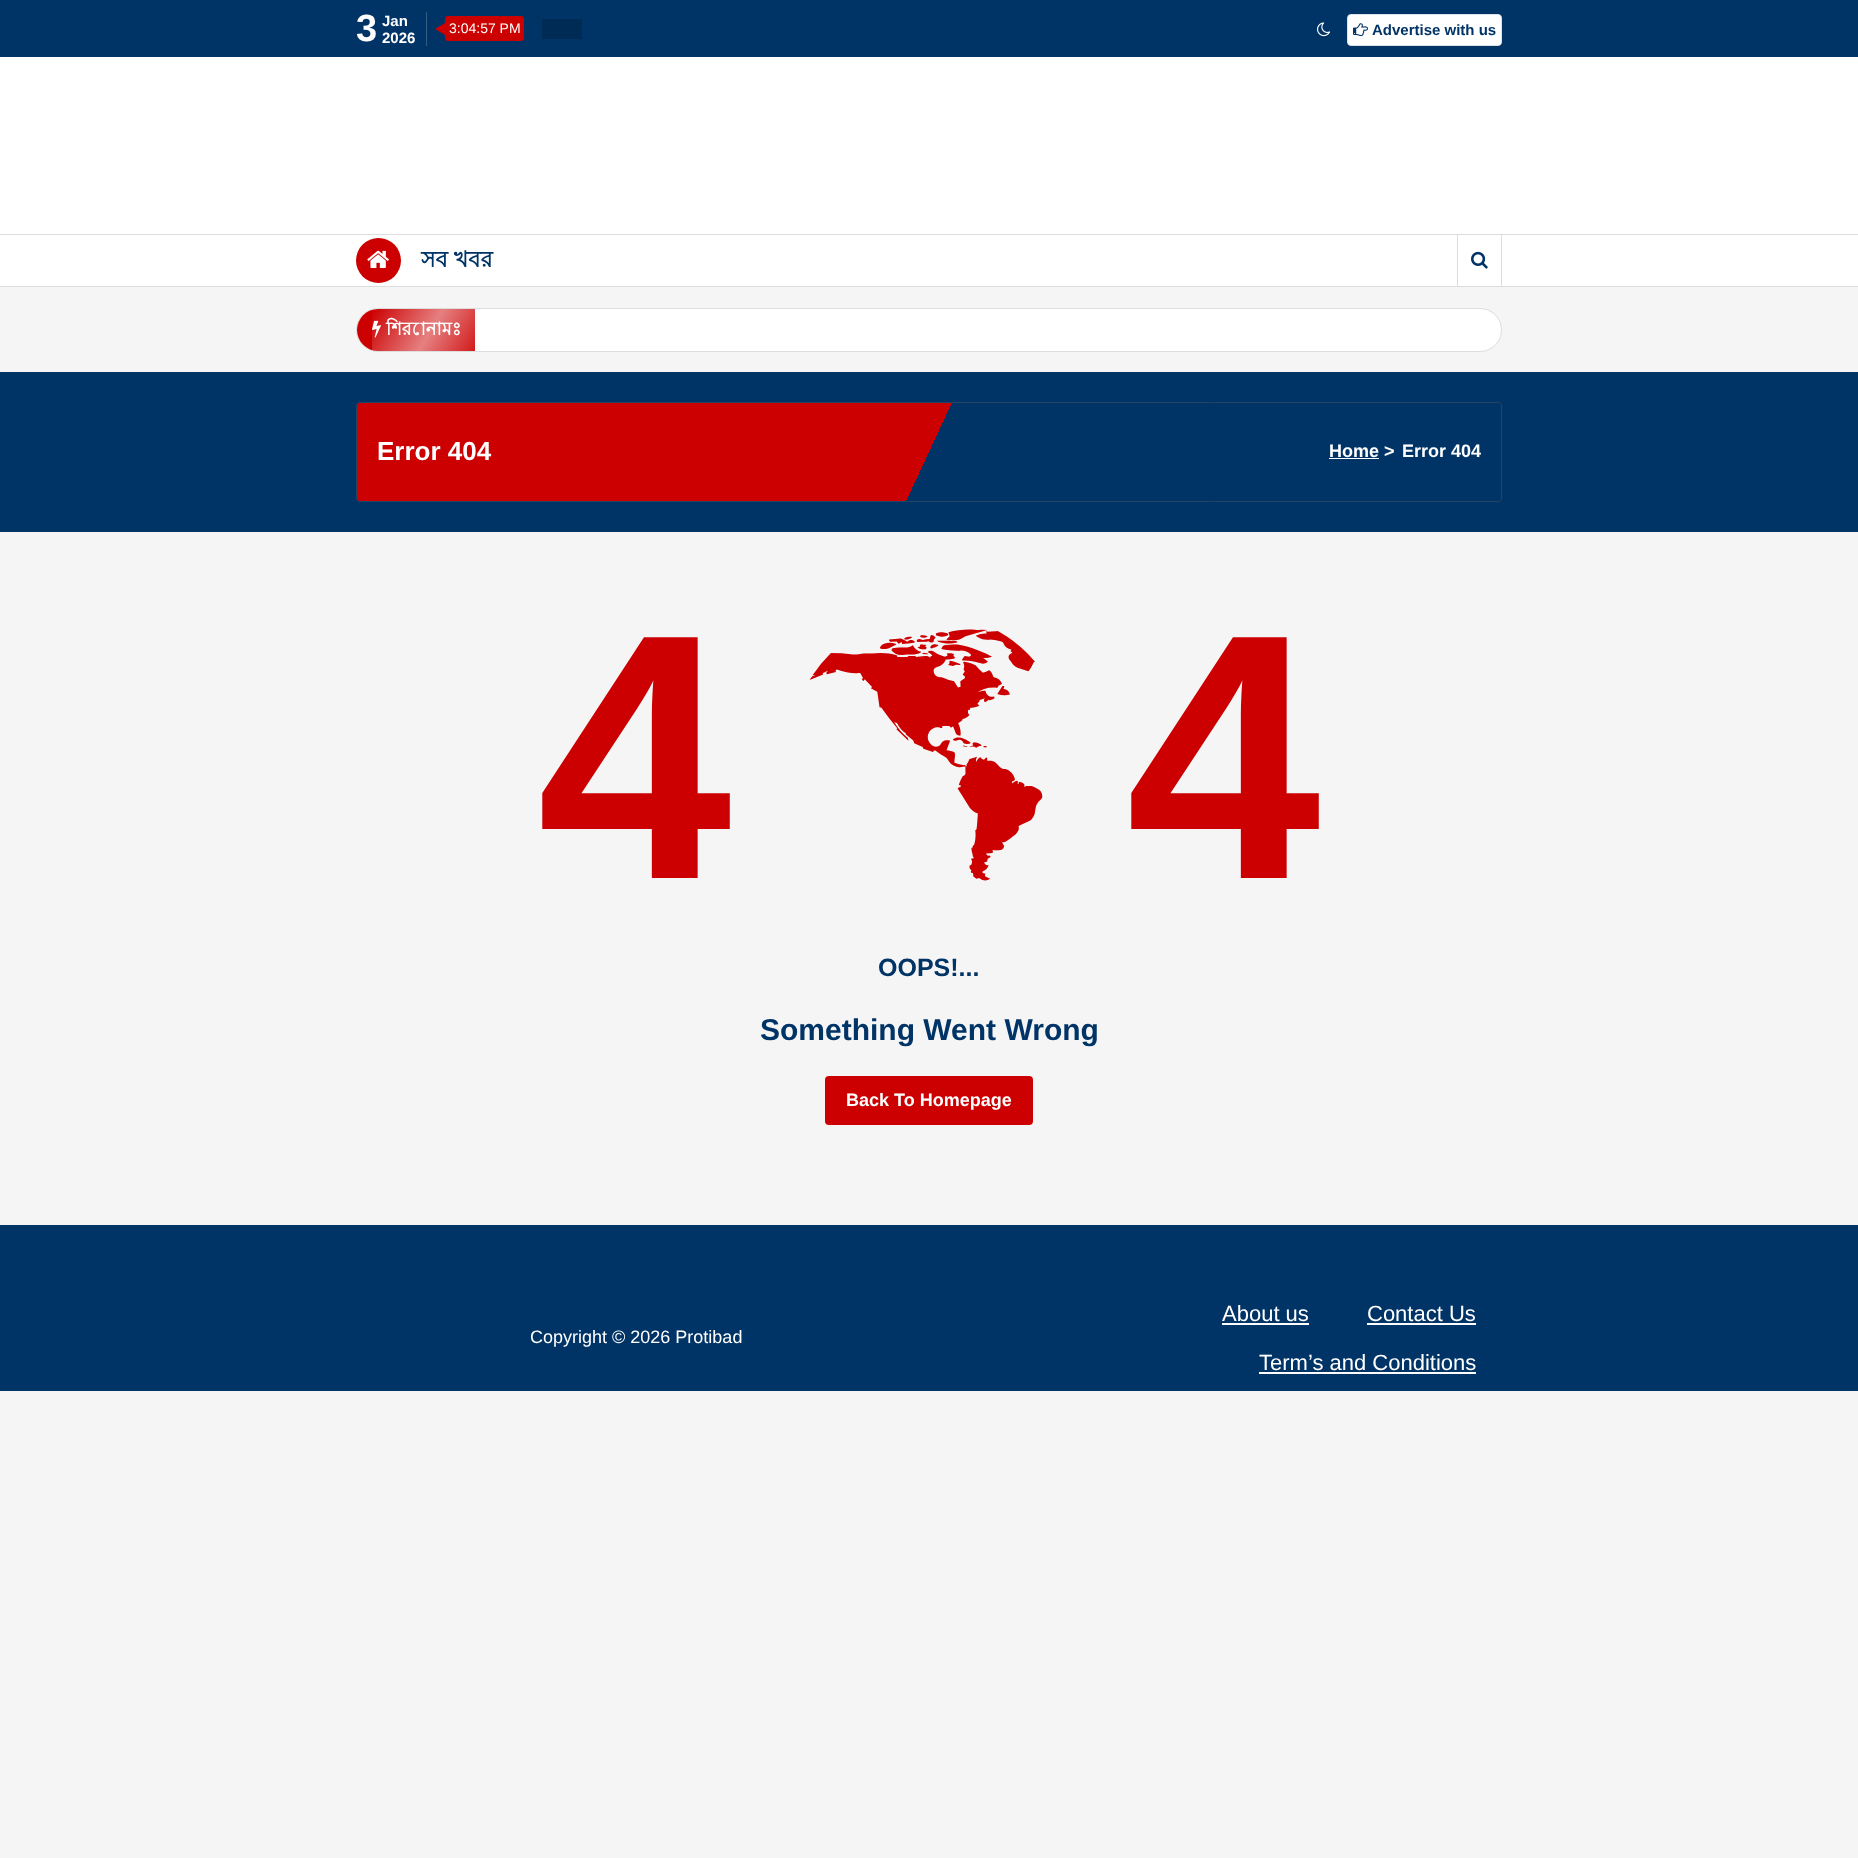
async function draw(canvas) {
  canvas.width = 1858
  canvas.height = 1858
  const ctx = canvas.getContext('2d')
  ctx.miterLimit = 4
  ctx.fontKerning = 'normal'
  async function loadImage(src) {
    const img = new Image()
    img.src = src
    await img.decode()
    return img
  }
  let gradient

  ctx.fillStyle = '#f5f5f5'
  ctx.fillRect(0, 0, 1858, 1858)
  ctx.fillStyle = '#036'
  ctx.fillRect(0, 0, 1858, 57)
  ctx.font = 'bold 38px Liberation Sans'
  ctx.fillStyle = '#fff'
  ctx.fillText('3', 356, 41)
  ctx.fillStyle = '#355c83'
  ctx.fillRect(426, 12, 1, 34)
  ctx.font = 'bold 15px Liberation Sans'
  ctx.fillStyle = '#fff'
  ctx.fillText('Jan', 382, 26)
  ctx.fillText('2026', 382, 43)
  ctx.fillStyle = '#cc0001'
  ctx.beginPath()
  ctx.roundRect(445, 16, 79, 25, 3)
  ctx.fill()
  ctx.beginPath()
  ctx.moveTo(445, 23)
  ctx.lineTo(445, 35)
  ctx.lineTo(435, 29)
  ctx.closePath()
  ctx.fill()
  ctx.font = '14px Liberation Sans'
  ctx.fillStyle = '#fff'
  ctx.fillText('3:04:57 PM', 449, 33)
  ctx.fillStyle = '#002b55'
  ctx.fillRect(542, 19, 40, 20)
  ctx.drawImage(await loadImage('image0.png'), 1317, 22, 14, 15)
  ctx.fillStyle = '#fff'
  ctx.beginPath()
  ctx.roundRect(1347.5, 14.5, 154, 31, 3.5)
  ctx.fill()
  ctx.strokeStyle = '#dee2e6'
  ctx.stroke()
  ctx.drawImage(await loadImage('image1.png'), 1353, 23, 15, 13)
  ctx.font = 'bold 15px Liberation Sans'
  ctx.fillStyle = '#036'
  ctx.fillText('Advertise with us', 1372, 35)
  ctx.fillStyle = '#fff'
  ctx.fillRect(0, 57, 1858, 177)
  ctx.fillRect(0, 235, 1858, 51)
  ctx.fillStyle = '#ddd'
  ctx.fillRect(0, 234, 1858, 1)
  ctx.fillRect(0, 286, 1858, 1)
  ctx.fillStyle = '#cc0001'
  ctx.beginPath()
  ctx.arc(378.5, 260.5, 22.5, 0, 2 * Math.PI)
  ctx.fill()
  ctx.drawImage(await loadImage('image2.png'), 367, 250, 22, 18)
  ctx.font = 'bold 22px Lohit Bengali'
  ctx.fillStyle = '#036'
  ctx.fillText('সব খবর', 421, 267)
  ctx.fillStyle = '#ddd'
  ctx.fillRect(1501, 235, 1, 51)
  ctx.fillRect(1457, 235, 1, 51)
  ctx.drawImage(await loadImage('image3.png'), 1471, 251, 17, 18)
  ctx.fillStyle = '#fff'
  ctx.beginPath()
  ctx.roundRect(356.5, 308.5, 1145, 43, 21.5)
  ctx.fill()
  ctx.strokeStyle = '#ddd'
  ctx.stroke()
  ctx.fillStyle = '#cc0001'
  ctx.beginPath()
  ctx.roundRect(357, 309, 118, 42, [21, 0, 0, 21])
  ctx.fill()
  ctx.drawImage(await loadImage('image4.png'), 372, 320, 9, 18)
  ctx.font = 'bold 18px Lohit Bengali'
  ctx.fillStyle = '#fff'
  ctx.fillText('শিরোনামঃ', 386, 335)
  gradient = ctx.createLinearGradient(378, 299, 484, 361)
  gradient.addColorStop(0, '#ffffff00')
  gradient.addColorStop(0.5, '#ffffff80')
  gradient.addColorStop(1, '#ffffff00')
  ctx.fillStyle = gradient
  ctx.fillRect(372, 309, 103, 42)
  ctx.fillStyle = '#036'
  ctx.fillRect(0, 372, 1858, 160)
  ctx.save()
  ctx.beginPath()
  ctx.roundRect(356, 402, 1146, 100, 4)
  ctx.clip()
  gradient = ctx.createLinearGradient(440, 224, 1418, 680)
  gradient.addColorStop(0.5, '#cc0001')
  gradient.addColorStop(0.5, '#036')
  ctx.fillStyle = gradient
  ctx.fillRect(357, 403, 1144, 98)
  ctx.restore()
  ctx.beginPath()
  ctx.roundRect(356.5, 402.5, 1145, 99, 3.5)
  ctx.strokeStyle = '#244464'
  ctx.stroke()
  ctx.font = 'bold 26px Liberation Sans'
  ctx.fillStyle = '#fff'
  ctx.fillText('Error 404', 377, 460)
  ctx.font = 'bold 18px Liberation Sans'
  ctx.fillText('Home >', 1329, 457)
  ctx.fillRect(1329, 458, 50, 1)
  ctx.fillText('Error 404', 1402, 457)
  ctx.font = 'bold 350px Liberation Sans'
  ctx.fillStyle = '#cc0001'
  ctx.fillText('4', 537, 878)
  ctx.drawImage(await loadImage('image6.png'), 810, 629, 233, 252)
  ctx.drawImage(await loadImage('image5.png'), 809, 629, 234, 252)
  ctx.fillText('4', 1126, 878)
  ctx.font = 'bold 25px Liberation Sans'
  ctx.fillStyle = '#036'
  ctx.fillText('OOPS!...', 878, 976)
  ctx.font = 'bold 30px Liberation Sans'
  ctx.fillText('Something Went Wrong', 760, 1040)
  ctx.fillStyle = '#cc0001'
  ctx.beginPath()
  ctx.roundRect(825, 1076, 208, 49, 4)
  ctx.fill()
  ctx.font = 'bold 18px Liberation Sans'
  ctx.fillStyle = '#fff'
  ctx.fillText('Back To Homepage', 846, 1106)
  ctx.fillStyle = '#036'
  ctx.fillRect(0, 1225, 1858, 166)
  ctx.font = '18px Liberation Sans'
  ctx.fillStyle = '#fff'
  ctx.fillText('Copyright © 2026 Protibad', 530, 1343)
  ctx.font = '22px Liberation Sans'
  ctx.fillText('About us', 1222, 1321)
  ctx.fillRect(1222, 1323, 87, 2)
  ctx.fillText('Contact Us', 1367, 1321)
  ctx.fillRect(1367, 1323, 109, 2)
  ctx.fillText('Term’s and Conditions', 1259, 1370)
  ctx.fillRect(1259, 1372, 217, 2)
}

draw(document.querySelector('canvas'))
